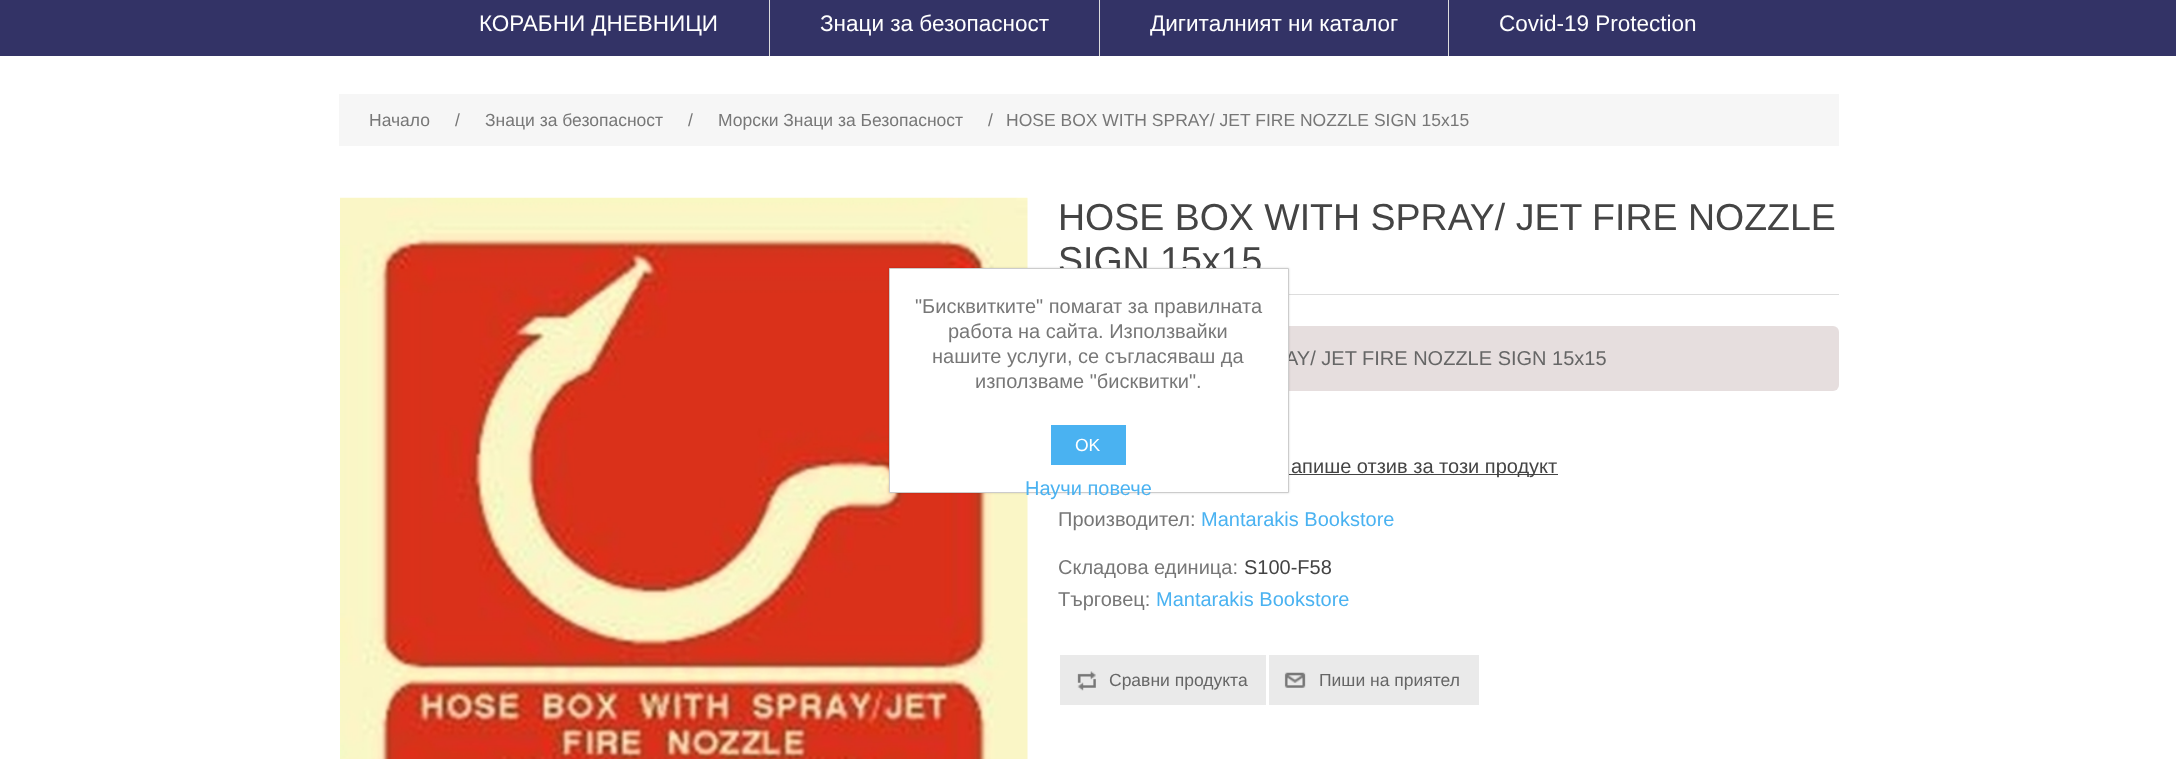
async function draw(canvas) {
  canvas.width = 2176
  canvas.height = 759
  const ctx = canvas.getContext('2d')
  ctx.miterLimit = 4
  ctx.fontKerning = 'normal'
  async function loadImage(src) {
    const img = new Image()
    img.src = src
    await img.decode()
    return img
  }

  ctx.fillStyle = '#fff'
  ctx.fillRect(0, 0, 2176, 759)
  ctx.fillStyle = '#336'
  ctx.fillRect(0, 0, 2176, 56)
  ctx.font = '22.5px Liberation Sans'
  ctx.fillStyle = '#fff'
  ctx.fillText('КОРАБНИ ДНЕВНИЦИ', 479, 31)
  ctx.fillStyle = '#ddd'
  ctx.fillRect(769, 0, 1, 56)
  ctx.fillStyle = '#fff'
  ctx.fillText('Знаци за безопасност', 820, 31)
  ctx.fillStyle = '#ddd'
  ctx.fillRect(1099, 0, 1, 56)
  ctx.fillStyle = '#fff'
  ctx.fillText('Дигиталният ни каталог', 1150, 31)
  ctx.fillStyle = '#ddd'
  ctx.fillRect(1448, 0, 1, 56)
  ctx.fillStyle = '#fff'
  ctx.fillText('Covid-19 Protection', 1499, 31)
  ctx.fillStyle = '#f6f6f6'
  ctx.fillRect(339, 94, 1500, 52)
  ctx.font = '17.5px Liberation Sans'
  ctx.fillStyle = '#777'
  ctx.fillText('Начало', 369, 126)
  ctx.fillText('/', 455, 126)
  ctx.fillText('Знаци за безопасност', 485, 126)
  ctx.fillText('/', 688, 126)
  ctx.fillText('Морски Знаци за Безопасност', 718, 126)
  ctx.fillText('/', 988, 126)
  ctx.fillText('HOSE BOX WITH SPRAY/ JET FIRE NOZZLE SIGN 15x15', 1006, 126)
  ctx.drawImage(await loadImage('image0.png'), 340, 197, 688, 562)
  ctx.fillStyle = '#ddd'
  ctx.fillRect(1289, 294, 550, 1)
  ctx.font = '37.5px Liberation Sans'
  ctx.fillStyle = '#444'
  ctx.fillText('HOSE BOX WITH SPRAY/ JET FIRE NOZZLE', 1058, 230)
  ctx.fillText('SIGN 15x15', 1058, 273)
  ctx.fillStyle = '#e6dede'
  ctx.beginPath()
  ctx.roundRect(1059, 326, 780, 65, 6)
  ctx.fill()
  ctx.font = '20px Liberation Sans'
  ctx.fillStyle = '#666'
  ctx.fillText('AY/ JET FIRE NOZZLE SIGN 15x15', 1285, 365)
  ctx.fillStyle = '#444'
  ctx.fillRect(1289, 474, 269, 1)
  ctx.fillText('апише отзив за този продукт', 1291, 473)
  ctx.fillStyle = '#777'
  ctx.fillText('Производител:', 1058, 526)
  ctx.fillStyle = '#4ab2f1'
  ctx.fillText('Mantarakis Bookstore', 1201, 526)
  ctx.fillStyle = '#777'
  ctx.fillText('Складова единица:', 1058, 574)
  ctx.fillStyle = '#444'
  ctx.fillText('S100-F58', 1244, 574)
  ctx.fillStyle = '#777'
  ctx.fillText('Търговец:', 1058, 606)
  ctx.fillStyle = '#4ab2f1'
  ctx.fillText('Mantarakis Bookstore', 1156, 606)
  ctx.fillStyle = '#eaeaea'
  ctx.fillRect(1060, 655, 206, 50)
  ctx.drawImage(await loadImage('image1.png'), 1077, 671, 19, 20)
  ctx.font = '17.5px Liberation Sans'
  ctx.fillStyle = '#666'
  ctx.fillText('Сравни продукта', 1109, 686)
  ctx.fillStyle = '#eaeaea'
  ctx.fillRect(1269, 655, 210, 50)
  ctx.drawImage(await loadImage('image2.png'), 1284, 672, 22, 16)
  ctx.fillStyle = '#666'
  ctx.fillText('Пиши на приятел', 1319, 686)
  ctx.fillStyle = '#00000026'
  ctx.filter = 'blur(1px)'
  ctx.beginPath()
  ctx.rect(889, 268, 400, 225)
  ctx.fill()
  ctx.filter = 'none'
  ctx.fillStyle = '#fff'
  ctx.beginPath()
  ctx.rect(889.5, 268.5, 399, 224)
  ctx.fill()
  ctx.strokeStyle = '#ccc'
  ctx.stroke()
  ctx.font = '20px Liberation Sans'
  ctx.fillStyle = '#777'
  ctx.fillText('"Бисквитките" помагат за правилната', 915, 313)
  ctx.fillText('работа на сайта. Използвайки', 948, 338)
  ctx.fillText('нашите услуги, се съгласяваш да', 932, 363)
  ctx.fillText('използваме "бисквитки".', 975, 388)
  ctx.fillStyle = '#4ab2f1'
  ctx.fillRect(1051, 425, 75, 40)
  ctx.font = '17.5px Liberation Sans'
  ctx.fillStyle = '#fff'
  ctx.fillText('OK', 1075, 451)
  ctx.font = '20px Liberation Sans'
  ctx.fillStyle = '#4ab2f1'
  ctx.fillText('Научи повече', 1025, 495)
}

draw(document.querySelector('canvas'))
